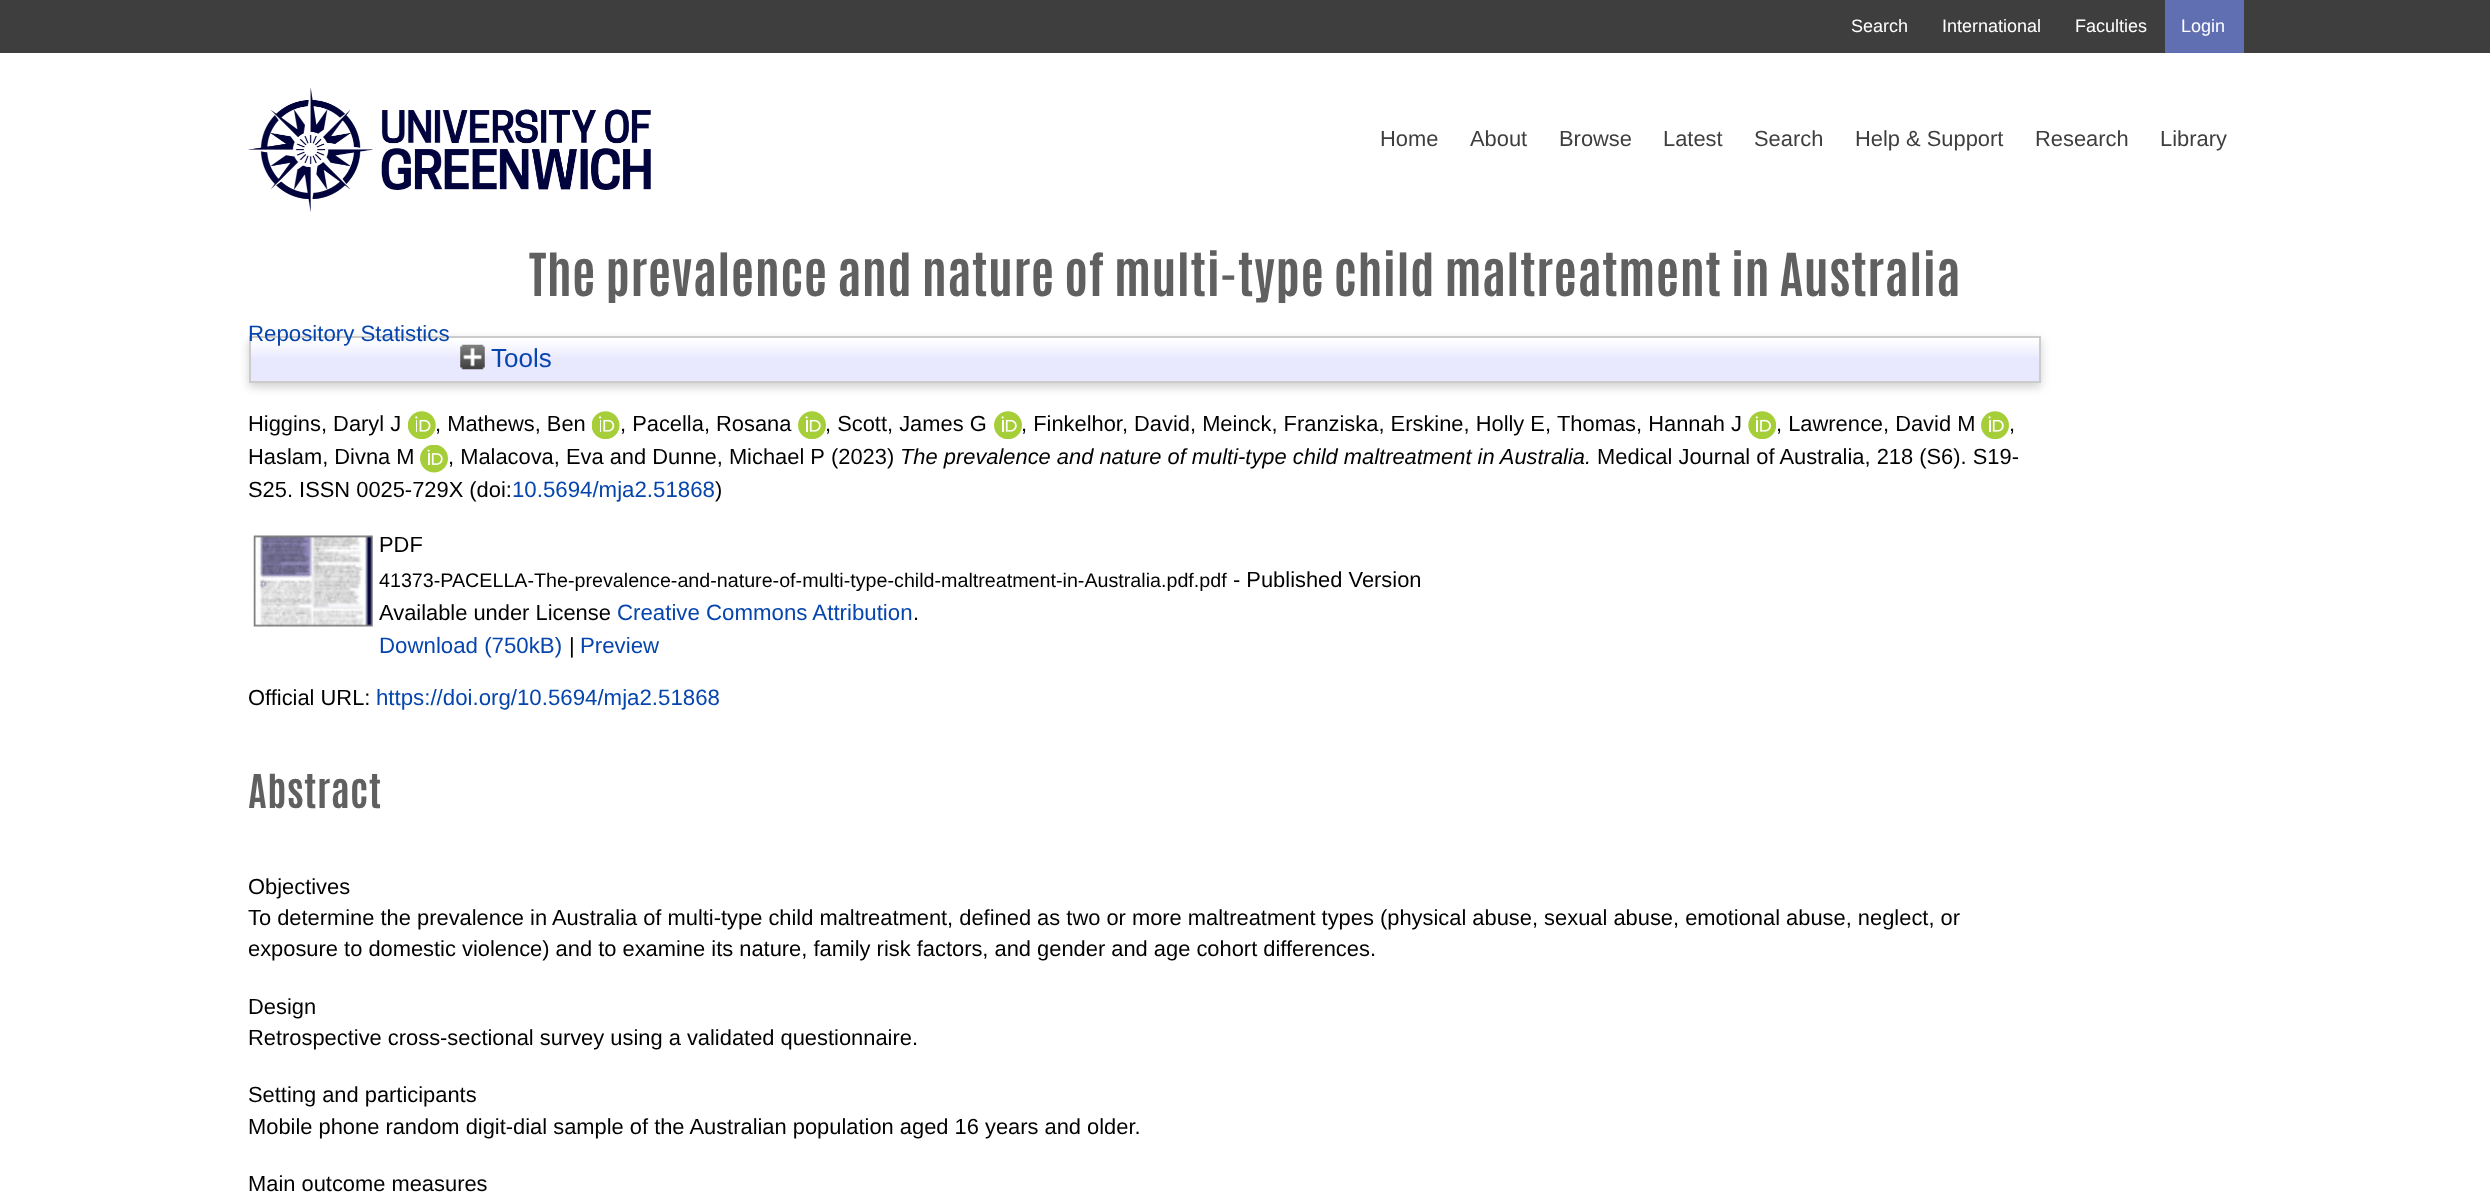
async function draw(canvas) {
  canvas.width = 2490
  canvas.height = 1192
  const ctx = canvas.getContext('2d')
  ctx.miterLimit = 4
  ctx.fontKerning = 'normal'
  async function loadImage(src) {
    const img = new Image()
    img.src = src
    await img.decode()
    return img
  }

  ctx.fillStyle = '#fff'
  ctx.fillRect(0, 0, 2490, 1192)
  ctx.fillStyle = '#3e3e3e'
  ctx.fillRect(0, 0, 2490, 53)
  ctx.font = '18px Liberation Sans'
  ctx.fillStyle = '#fff'
  ctx.fillText('Search', 1851, 32)
  ctx.fillText('International', 1942, 32)
  ctx.fillText('Faculties', 2075, 32)
  ctx.fillStyle = '#606eb2'
  ctx.fillRect(2165, 0, 79, 53)
  ctx.fillStyle = '#fff'
  ctx.fillText('Login', 2181, 32)
  ctx.drawImage(await loadImage('image0.png'), 248, 88, 403, 124)
  ctx.font = '21.88px Liberation Sans'
  ctx.fillStyle = '#3e3e3e'
  ctx.fillText('Home', 1380, 146)
  ctx.fillText('About', 1470, 146)
  ctx.fillText('Browse', 1559, 146)
  ctx.fillText('Latest', 1663, 146)
  ctx.fillText('Search', 1754, 146)
  ctx.fillText('Help & Support', 1855, 146)
  ctx.fillText('Research', 2035, 146)
  ctx.fillText('Library', 2160, 146)
  ctx.letterSpacing = '0.45px'
  ctx.font = 'bold 50.3px Antonio'
  ctx.fillStyle = '#606060'
  ctx.fillText('The prevalence and nature of multi‐type child maltreatment in Australia', 529, 296)
  ctx.fillStyle = '#6464644d'
  ctx.filter = 'blur(5px)'
  ctx.beginPath()
  ctx.rect(249, 340, 1792, 47)
  ctx.fill()
  ctx.filter = 'none'
  ctx.fillStyle = '#e8e8ff'
  ctx.fillRect(251, 339, 1788, 42)
  ctx.drawImage(await loadImage('image1.png'), 251, 338, 1788, 19)
  ctx.strokeStyle = '#ccc'
  ctx.lineWidth = 2
  ctx.strokeRect(250, 337, 1790, 45)
  ctx.letterSpacing = '0px'
  ctx.font = '22.25px Liberation Sans'
  ctx.fillStyle = '#0645ad'
  ctx.fillText('Repository Statistics', 248, 341)
  ctx.drawImage(await loadImage('image2.png'), 460, 344, 25, 26)
  ctx.font = '26px Liberation Sans'
  ctx.fillText('Tools', 491, 367)
  ctx.font = '21.88px Liberation Sans'
  ctx.fillStyle = '#000'
  ctx.fillText('Higgins, Daryl J', 248, 431)
  ctx.drawImage(await loadImage('image3.png'), 408, 411, 28, 28)
  ctx.fillText(', Mathews, Ben', 435, 431)
  ctx.drawImage(await loadImage('image4.png'), 592, 411, 28, 28)
  ctx.fillText(', Pacella, Rosana', 620, 431)
  ctx.drawImage(await loadImage('image5.png'), 798, 411, 28, 28)
  ctx.fillText(', Scott, James G', 825, 431)
  ctx.drawImage(await loadImage('image5.png'), 994, 411, 28, 28)
  ctx.fillText(', Finkelhor, David, Meinck, Franziska, Erskine, Holly E,', 1021, 431)
  ctx.fillText('Thomas, Hannah J', 1557, 431)
  ctx.drawImage(await loadImage('image6.png'), 1748, 411, 28, 28)
  ctx.fillText(', Lawrence, David M', 1776, 431)
  ctx.drawImage(await loadImage('image5.png'), 1981, 411, 28, 28)
  ctx.fillText(',', 2009, 431)
  ctx.fillText('Haslam, Divna M', 248, 464)
  ctx.drawImage(await loadImage('image7.png'), 420, 445, 28, 28)
  ctx.fillText(', Malacova, Eva and Dunne, Michael P', 448, 464)
  ctx.fillText('(2023)', 831, 464)
  ctx.font = 'italic 21.88px Liberation Sans'
  ctx.fillText('The prevalence and nature of multi‐type child maltreatment in Australia.', 900, 464)
  ctx.font = '21.88px Liberation Sans'
  ctx.fillText('Medical Journal of Australia, 218 (S6). S19-', 1597, 464)
  ctx.fillText('S25. ISSN 0025-729X (doi:', 248, 497)
  ctx.font = '22.25px Liberation Sans'
  ctx.fillStyle = '#0645ad'
  ctx.fillText('10.5694/mja2.51868', 512, 497)
  ctx.font = '21.88px Liberation Sans'
  ctx.fillStyle = '#000'
  ctx.fillText(')', 715, 497)
  ctx.drawImage(await loadImage('image8.png'), 253, 535, 120, 92)
  ctx.fillText('PDF', 379, 552)
  ctx.font = '19.7px Liberation Sans'
  ctx.fillText('41373-PACELLA-The-prevalence-and-nature-of-multi-type-child-maltreatment-in-Australia.pdf.pdf', 379, 587)
  ctx.font = '21.88px Liberation Sans'
  ctx.fillText('- Published Version', 1233, 587)
  ctx.fillText('Available under License', 379, 620)
  ctx.font = '22.25px Liberation Sans'
  ctx.fillStyle = '#0645ad'
  ctx.fillText('Creative Commons Attribution', 617, 620)
  ctx.font = '21.88px Liberation Sans'
  ctx.fillStyle = '#000'
  ctx.fillText('.', 913, 620)
  ctx.font = '22.25px Liberation Sans'
  ctx.fillStyle = '#0645ad'
  ctx.fillText('Download (750kB)', 379, 653)
  ctx.font = '21.88px Liberation Sans'
  ctx.fillStyle = '#000'
  ctx.fillText('|', 569, 653)
  ctx.font = '22.25px Liberation Sans'
  ctx.fillStyle = '#0645ad'
  ctx.fillText('Preview', 580, 653)
  ctx.font = '21.88px Liberation Sans'
  ctx.fillStyle = '#000'
  ctx.fillText('Official URL:', 248, 705)
  ctx.font = '22.25px Liberation Sans'
  ctx.fillStyle = '#0645ad'
  ctx.fillText('https://doi.org/10.5694/mja2.51868', 376, 705)
  ctx.letterSpacing = '0.45px'
  ctx.font = 'bold 39.5px Antonio'
  ctx.fillStyle = '#606060'
  ctx.fillText('Abstract', 248, 808)
  ctx.letterSpacing = '0px'
  ctx.font = '21.88px Liberation Sans'
  ctx.fillStyle = '#000'
  ctx.fillText('Objectives', 248, 894)
  ctx.fillText('To determine the prevalence in Australia of multi-type child maltreatment, defined as two or more maltreatment types (physical abuse, sexual abuse, emotional abuse, neglect, or', 248, 925)
  ctx.fillText('exposure to domestic violence) and to examine its nature, family risk factors, and gender and age cohort differences.', 248, 956)
  ctx.fillText('Design', 248, 1014)
  ctx.fillText('Retrospective cross-sectional survey using a validated questionnaire.', 248, 1045)
  ctx.fillText('Setting and participants', 248, 1102)
  ctx.fillText('Mobile phone random digit-dial sample of the Australian population aged 16 years and older.', 248, 1134)
  ctx.fillText('Main outcome measures', 248, 1191)
}

draw(document.querySelector('canvas'))
